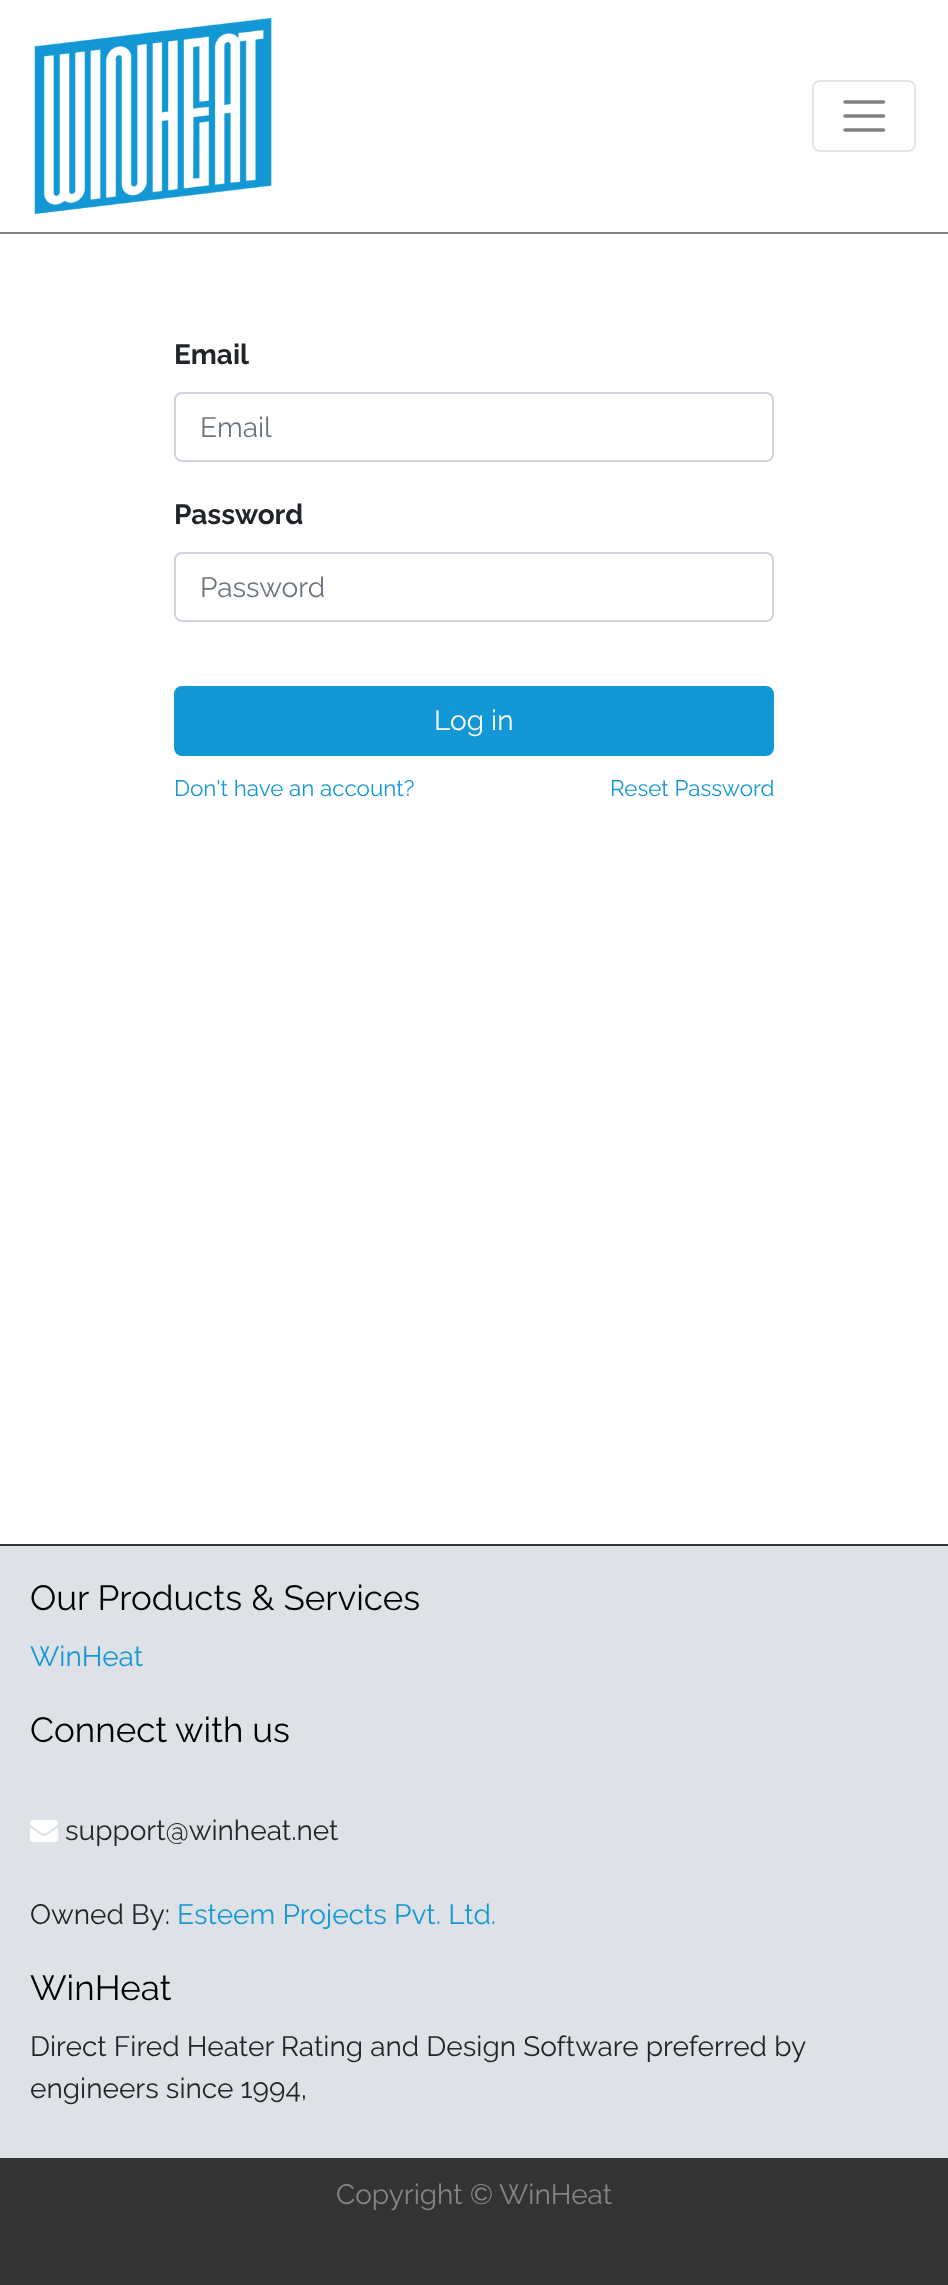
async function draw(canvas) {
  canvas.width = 948
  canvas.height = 2285
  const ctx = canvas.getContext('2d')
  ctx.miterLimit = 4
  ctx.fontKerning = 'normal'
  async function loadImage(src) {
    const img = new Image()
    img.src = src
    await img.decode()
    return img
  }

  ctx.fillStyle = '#fff'
  ctx.fillRect(0, 0, 948, 2285)
  ctx.fillStyle = '#808080'
  ctx.fillRect(0, 232, 948, 2)
  ctx.drawImage(await loadImage('image0.png'), 32, 16, 242, 200)
  ctx.beginPath()
  ctx.roundRect(813, 81, 102, 70, 7)
  ctx.strokeStyle = '#e6e6e6'
  ctx.lineWidth = 2
  ctx.stroke()
  ctx.beginPath()
  ctx.moveTo(845, 102)
  ctx.lineTo(883.5, 102)
  ctx.moveTo(845, 116)
  ctx.lineTo(883.5, 116)
  ctx.moveTo(845, 130)
  ctx.lineTo(883.5, 130)
  ctx.strokeStyle = '#808080'
  ctx.lineWidth = 3.5
  ctx.lineCap = 'round'
  ctx.stroke()
  ctx.font = 'bold 28px Raleway'
  ctx.fillStyle = '#212529'
  ctx.fillText('Email', 174, 364)
  ctx.beginPath()
  ctx.roundRect(175, 393, 598, 68, 7)
  ctx.strokeStyle = '#ced4da'
  ctx.lineWidth = 2
  ctx.stroke()
  ctx.font = '28px Raleway'
  ctx.fillStyle = '#6c757d'
  ctx.fillText('Email', 200, 437)
  ctx.font = 'bold 28px Raleway'
  ctx.fillStyle = '#212529'
  ctx.fillText('Password', 174, 524)
  ctx.beginPath()
  ctx.roundRect(175, 553, 598, 68, 7)
  ctx.stroke()
  ctx.font = '28px Raleway'
  ctx.fillStyle = '#6c757d'
  ctx.fillText('Password', 200, 597)
  ctx.fillStyle = '#1498d5'
  ctx.beginPath()
  ctx.roundRect(175, 687, 598, 68, 7)
  ctx.fill()
  ctx.strokeStyle = '#1498d5'
  ctx.stroke()
  ctx.fillStyle = '#fff'
  ctx.fillText('Log in', 434, 730)
  ctx.font = '22.4px Raleway'
  ctx.fillStyle = '#1498d5'
  ctx.fillText('Don\'t have an account?', 174, 796)
  ctx.fillText('Reset Password', 610, 796)
  ctx.fillStyle = '#333'
  ctx.fillRect(0, 1544, 948, 741)
  ctx.fillStyle = '#dee2e6'
  ctx.fillRect(0, 1546, 948, 612)
  ctx.font = '35px Raleway'
  ctx.fillStyle = '#000'
  ctx.fillText('Our Products & Services', 30, 1610)
  ctx.font = '28px Raleway'
  ctx.fillStyle = '#1498d5'
  ctx.fillText('WinHeat', 30, 1666)
  ctx.font = '35px Raleway'
  ctx.fillStyle = '#000'
  ctx.fillText('Connect with us', 30, 1742)
  ctx.drawImage(await loadImage('image1.png'), 30, 1820, 28, 22)
  ctx.font = '28px Raleway'
  ctx.fillStyle = '#212529'
  ctx.fillText('support@winheat.net', 65, 1840)
  ctx.fillText('Owned By:', 30, 1924)
  ctx.fillStyle = '#1498d5'
  ctx.fillText('Esteem Projects Pvt. Ltd.', 177, 1924)
  ctx.font = '35px Raleway'
  ctx.fillStyle = '#000'
  ctx.fillText('WinHeat', 30, 2000)
  ctx.font = '28px Raleway'
  ctx.fillStyle = '#212529'
  ctx.fillText('Direct Fired Heater Rating and Design Software preferred by', 30, 2056)
  ctx.fillText('engineers since 1994,', 30, 2098)
  ctx.fillStyle = '#858585'
  ctx.fillText('Copyright ©', 336, 2204)
  ctx.fillText('WinHeat', 499, 2204)
}

draw(document.querySelector('canvas'))
